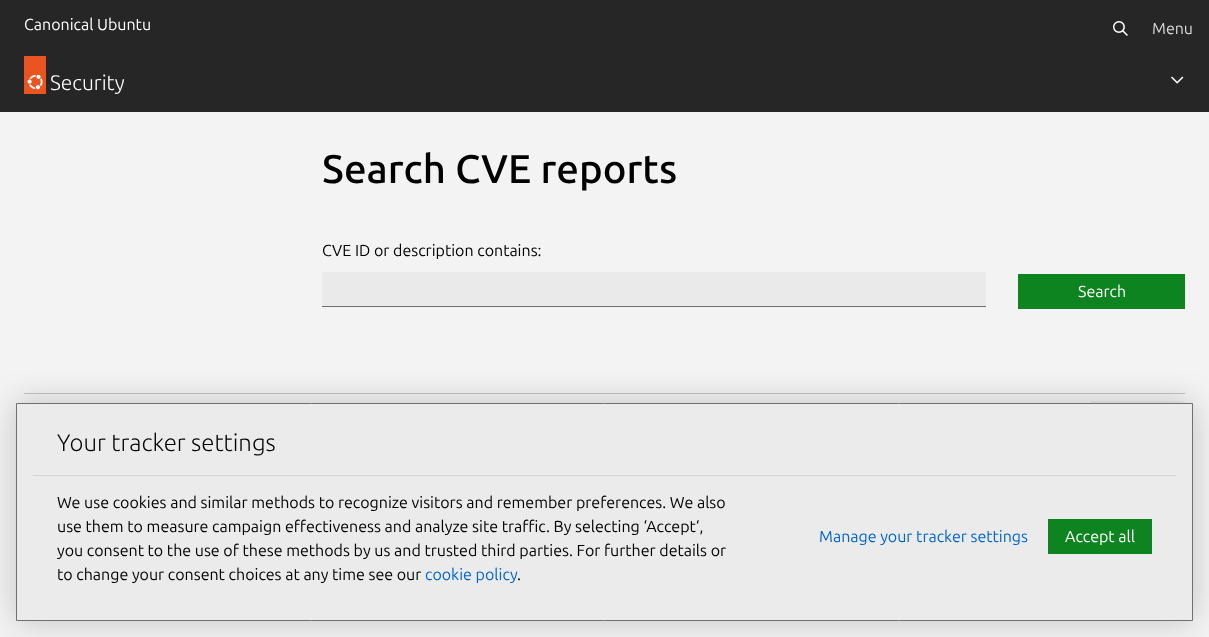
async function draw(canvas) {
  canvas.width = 1209
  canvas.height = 637
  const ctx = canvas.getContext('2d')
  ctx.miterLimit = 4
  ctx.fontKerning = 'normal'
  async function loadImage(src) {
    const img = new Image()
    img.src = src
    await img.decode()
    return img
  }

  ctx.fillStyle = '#f3f3f3'
  ctx.fillRect(0, 0, 1209, 637)
  ctx.fillStyle = '#262626'
  ctx.fillRect(0, 0, 1209, 112)
  ctx.font = '16px Ubuntu'
  ctx.fillStyle = '#fff'
  ctx.fillText('Canonical Ubuntu', 24, 30)
  ctx.drawImage(await loadImage('image0.png'), 1113, 21, 15, 15)
  ctx.fillStyle = '#d9d9d9'
  ctx.fillText('Menu', 1152, 34)
  ctx.fillStyle = '#e95420'
  ctx.fillRect(24, 56, 22, 38)
  ctx.drawImage(await loadImage('image1.png'), 27, 74, 16, 16)
  ctx.font = '300 21px Ubuntu'
  ctx.fillStyle = '#fff'
  ctx.fillText('Security', 50, 90)
  ctx.drawImage(await loadImage('image2.png'), 1171, 76, 13, 8)
  ctx.font = '500 40px Ubuntu'
  ctx.fillStyle = '#000'
  ctx.fillText('Search CVE reports', 322, 183)
  ctx.font = '16px Ubuntu'
  ctx.fillText('CVE ID or description contains:', 322, 256)
  ctx.fillStyle = '#eaeaea'
  ctx.fillRect(322, 272, 664, 34)
  ctx.fillStyle = '#707070'
  ctx.fillRect(322, 306, 664, 1)
  ctx.fillStyle = '#0e8420'
  ctx.fillRect(1018, 274, 167, 35)
  ctx.fillStyle = '#fff'
  ctx.fillText('Search', 1078, 297)
  ctx.fillStyle = '#c2c2c2'
  ctx.fillRect(24, 393, 1161, 1)
  ctx.fillStyle = '#eaeaea'
  ctx.fillRect(1090, 401, 95, 2)
  ctx.fillStyle = '#00000033'
  ctx.filter = 'blur(16px)'
  ctx.beginPath()
  ctx.rect(16, 403, 1177, 218)
  ctx.fill()
  ctx.filter = 'none'
  ctx.fillStyle = '#ebebeb'
  ctx.beginPath()
  ctx.rect(16.5, 403.5, 1176, 217)
  ctx.fill()
  ctx.strokeStyle = '#707070'
  ctx.stroke()
  ctx.font = '300 24px "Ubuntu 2"'
  ctx.fillStyle = '#000'
  ctx.fillText('Your tracker settings', 57, 451)
  ctx.fillStyle = '#d4d4d4'
  ctx.fillRect(33, 475, 1143, 1)
  ctx.font = '16px Ubuntu'
  ctx.fillStyle = '#000'
  ctx.fillText('We use cookies and similar methods to recognize visitors and remember preferences. We also', 57, 508)
  ctx.fillText('use them to measure campaign effectiveness and analyze site traffic. By selecting ‘Accept‘,', 57, 532)
  ctx.fillText('you consent to the use of these methods by us and trusted third parties. For further details or', 57, 556)
  ctx.fillText('to change your consent choices at any time see our', 57, 580)
  ctx.fillStyle = '#06c'
  ctx.fillText('cookie policy', 425, 580)
  ctx.fillStyle = '#000'
  ctx.fillText('.', 517, 580)
  ctx.fillStyle = '#06c'
  ctx.fillText('Manage your tracker settings', 819, 542)
  ctx.fillStyle = '#0e8420'
  ctx.fillRect(1048, 519, 104, 35)
  ctx.fillStyle = '#fff'
  ctx.fillText('Accept all', 1065, 542)
}

draw(document.querySelector('canvas'))
